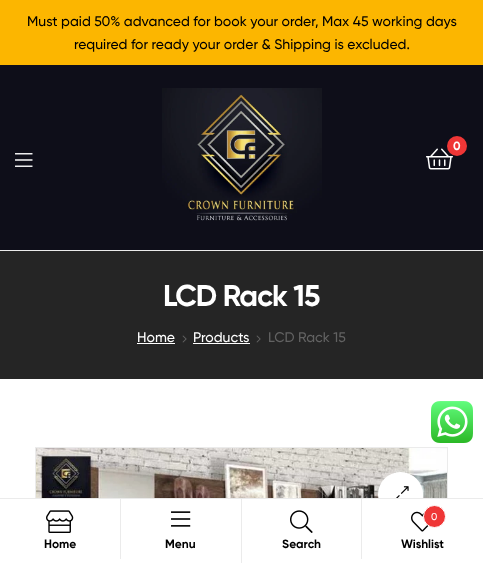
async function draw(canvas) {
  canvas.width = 483
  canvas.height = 563
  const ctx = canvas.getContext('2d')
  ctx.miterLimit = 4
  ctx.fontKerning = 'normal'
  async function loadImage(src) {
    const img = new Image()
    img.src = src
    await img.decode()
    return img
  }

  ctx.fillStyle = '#fff'
  ctx.fillRect(0, 0, 483, 563)
  ctx.fillStyle = '#fcb600'
  ctx.fillRect(0, 0, 483, 65)
  ctx.font = '500 14px Gilroy'
  ctx.fillStyle = '#000'
  ctx.fillText('Must paid 50% advanced for book your order, Max 45 working days', 27, 26)
  ctx.fillText('required for ready your order & Shipping is excluded.', 74, 49)
  ctx.fillStyle = '#0e0e19'
  ctx.fillRect(0, 65, 483, 185)
  ctx.fillStyle = '#ebebeb'
  ctx.fillRect(0, 250, 483, 1)
  ctx.drawImage(await loadImage('image0.png'), 162, 88, 160, 133)
  ctx.drawImage(await loadImage('image1.png'), 426, 148, 27, 22)
  ctx.fillStyle = '#ef3636'
  ctx.beginPath()
  ctx.arc(457, 146, 10, 0, 2 * Math.PI)
  ctx.fill()
  ctx.font = 'bold 12px Gilroy'
  ctx.fillStyle = '#fff'
  ctx.fillText('0', 453, 150)
  ctx.drawImage(await loadImage('image2.png'), 15, 153, 18, 14)
  ctx.fillStyle = '#252525'
  ctx.fillRect(0, 251, 483, 128)
  ctx.letterSpacing = '-1px'
  ctx.font = 'bold 30px Gilroy'
  ctx.fillStyle = '#fff'
  ctx.fillText('LCD Rack 15', 163, 306)
  ctx.letterSpacing = '0px'
  ctx.font = '500 14px Gilroy'
  ctx.fillText('Home', 137, 342)
  ctx.fillRect(137, 343, 38, 1)
  ctx.drawImage(await loadImage('image3.png'), 182, 335, 5, 8)
  ctx.fillText('Products', 193, 342)
  ctx.fillRect(193, 343, 57, 1)
  ctx.drawImage(await loadImage('image3.png'), 256, 335, 5, 8)
  ctx.fillStyle = '#626262'
  ctx.fillText('LCD Rack 15', 268, 342)
  ctx.strokeStyle = '#ebebeb'
  ctx.strokeRect(35.5, 447.5, 412, 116)
  ctx.drawImage(await loadImage('image4.png'), 36, 448, 411, 50)
  ctx.fillStyle = '#fff'
  ctx.beginPath()
  ctx.arc(400.5, 494.5, 22.5, 0, 2 * Math.PI)
  ctx.fill()
  ctx.drawImage(await loadImage('image5.png'), 396, 486, 13, 12)
  ctx.fillStyle = '#ebebeb'
  ctx.fillRect(0, 498, 483, 1)
  ctx.fillStyle = '#fff'
  ctx.fillRect(35, 499, 1, 60)
  ctx.fillStyle = '#ebebeb'
  ctx.fillRect(120, 499, 1, 60)
  ctx.drawImage(await loadImage('image6.png'), 46, 510, 28, 23)
  ctx.font = 'bold 12px Gilroy'
  ctx.fillStyle = '#000'
  ctx.fillText('Home', 44, 548)
  ctx.fillStyle = '#fff'
  ctx.fillRect(35, 559, 413, 4)
  ctx.fillStyle = '#ebebeb'
  ctx.fillRect(241, 499, 1, 64)
  ctx.drawImage(await loadImage('image7.png'), 171, 511, 20, 16)
  ctx.fillStyle = '#000'
  ctx.fillText('Menu', 165, 548)
  ctx.fillStyle = '#ebebeb'
  ctx.fillRect(361, 499, 1, 60)
  ctx.drawImage(await loadImage('image8.png'), 290, 510, 23, 23)
  ctx.fillStyle = '#000'
  ctx.fillText('Search', 282, 548)
  ctx.fillStyle = '#fff'
  ctx.fillRect(447, 499, 1, 60)
  ctx.drawImage(await loadImage('image9.png'), 411, 511, 18, 21)
  ctx.fillStyle = '#ef3636'
  ctx.beginPath()
  ctx.arc(434.5, 516.5, 11, 0, 2 * Math.PI)
  ctx.fill()
  ctx.strokeStyle = '#fff'
  ctx.stroke()
  ctx.font = '500 10px Gilroy'
  ctx.fillStyle = '#fff'
  ctx.fillText('0', 431, 520)
  ctx.font = 'bold 12px Gilroy'
  ctx.fillStyle = '#000'
  ctx.fillText('Wishlist', 401, 548)
  ctx.drawImage(await loadImage('image10.png'), 431, 401, 42, 42)
}

draw(document.querySelector('canvas'))
